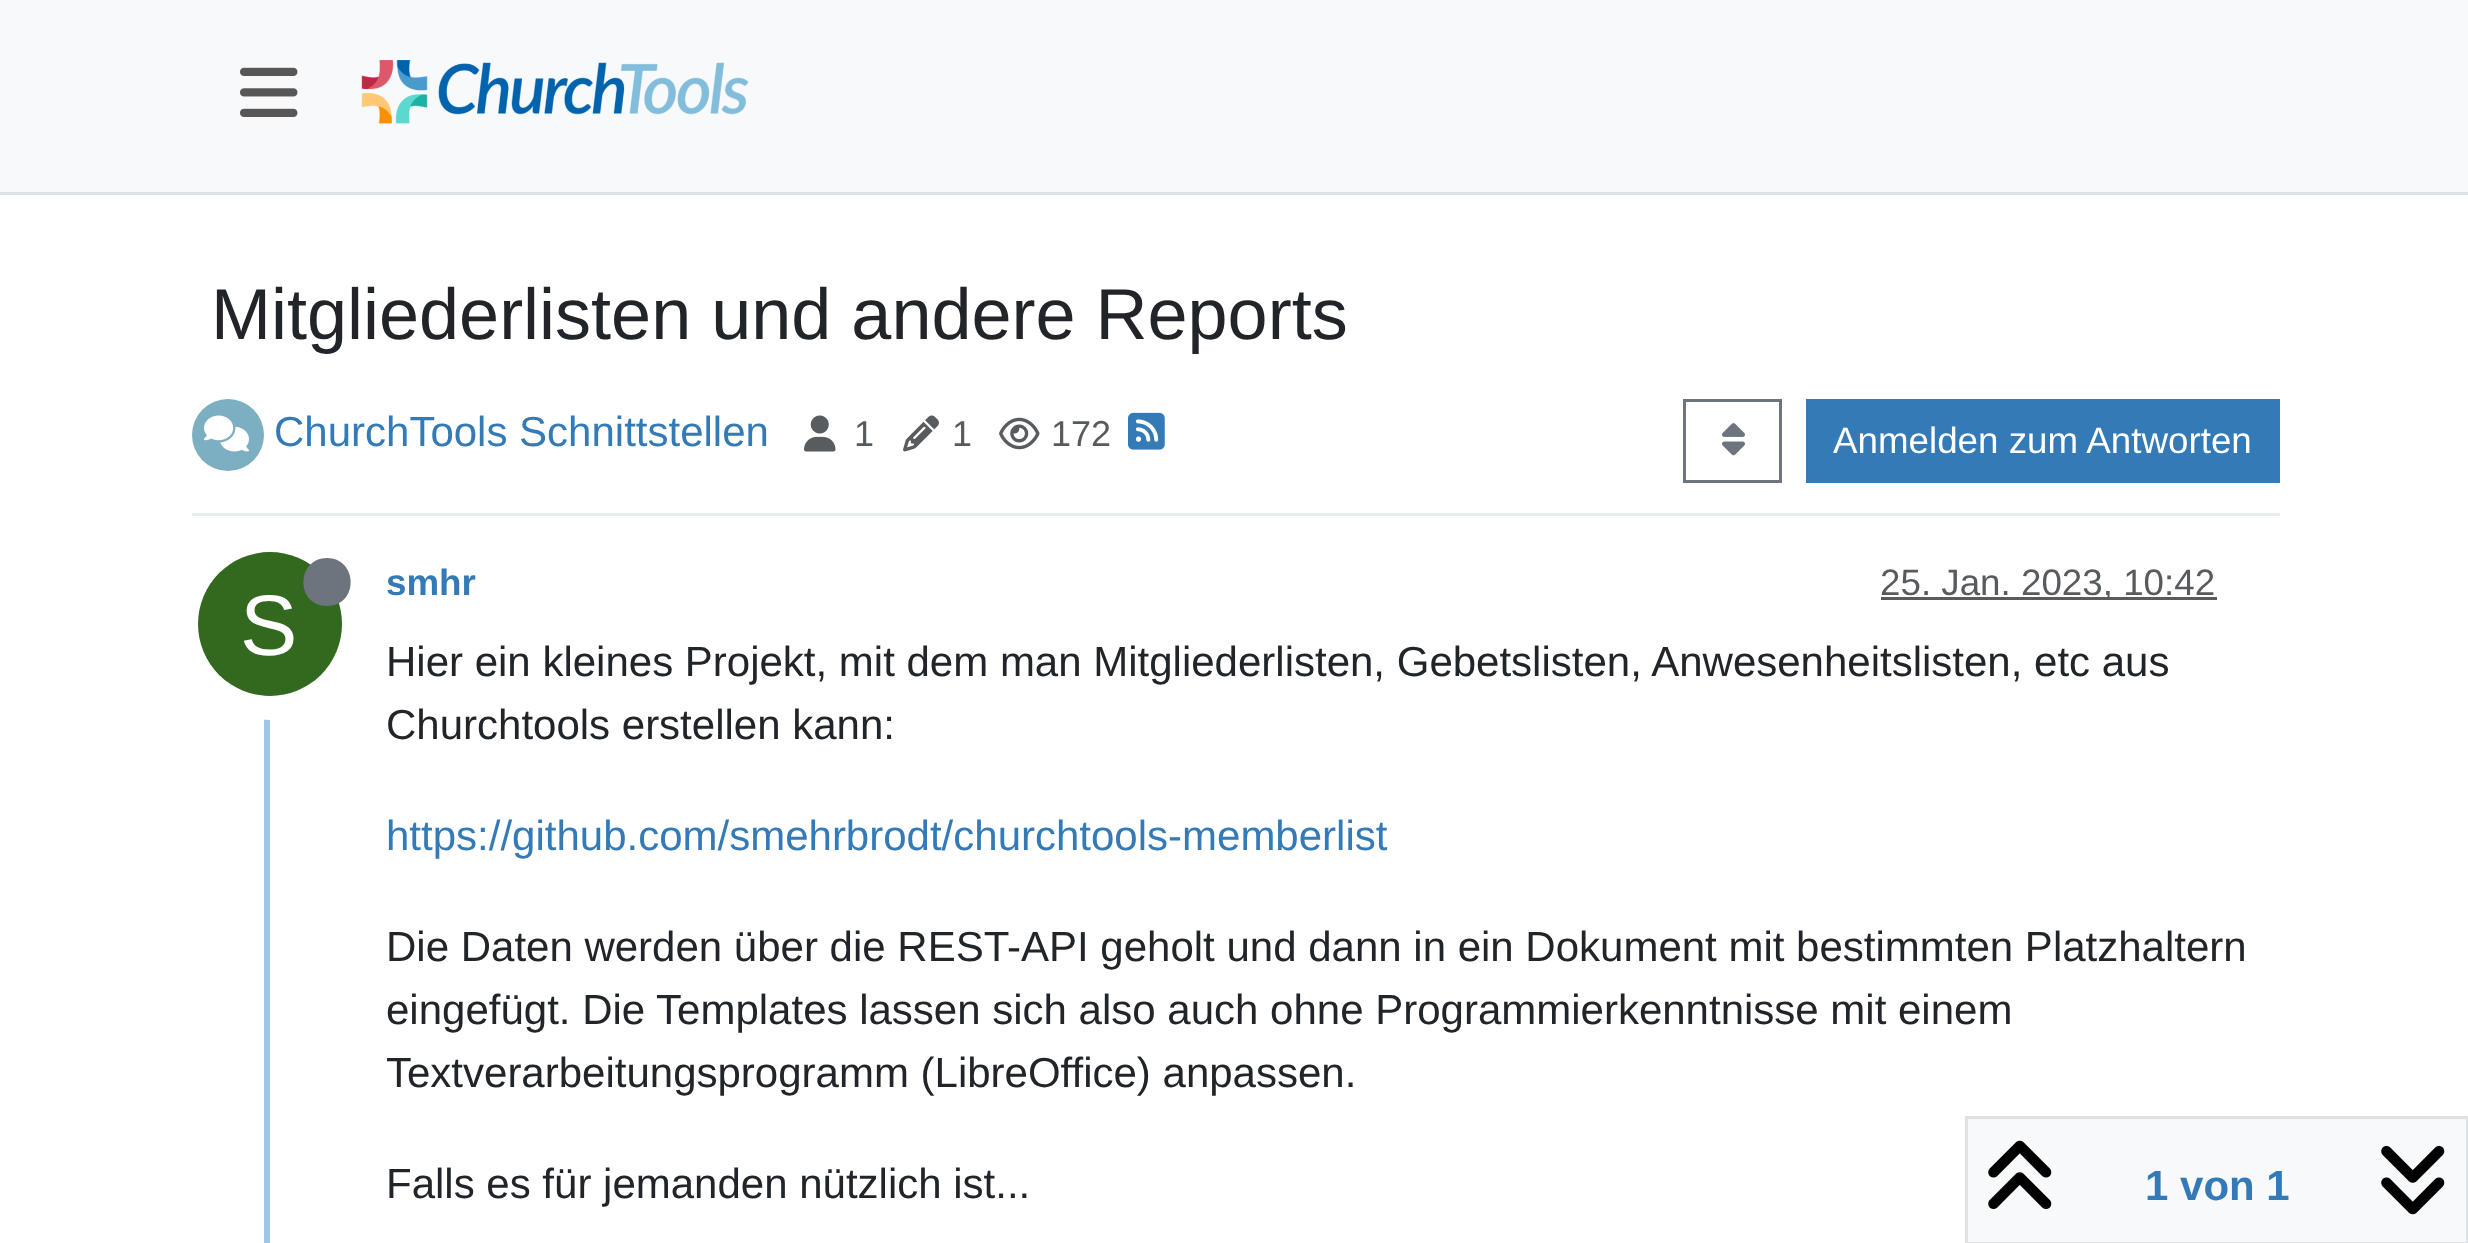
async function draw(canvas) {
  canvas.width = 2468
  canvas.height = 1243
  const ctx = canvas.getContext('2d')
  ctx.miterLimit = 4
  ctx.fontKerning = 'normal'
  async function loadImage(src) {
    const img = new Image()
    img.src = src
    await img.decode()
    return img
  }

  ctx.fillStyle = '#fff'
  ctx.fillRect(0, 0, 2468, 1243)
  ctx.fillStyle = '#f8f9fa'
  ctx.fillRect(0, 0, 2468, 192)
  ctx.fillStyle = '#dee2e6'
  ctx.fillRect(0, 192, 2468, 3)
  ctx.drawImage(await loadImage('image0.png'), 240, 67, 58, 50)
  ctx.drawImage(await loadImage('image1.png'), 361, 60, 388, 64)
  ctx.font = '72px Liberation Sans'
  ctx.fillStyle = '#212529'
  ctx.fillText('Mitgliederlisten und andere Reports', 211, 339)
  ctx.fillStyle = '#e9ecef'
  ctx.fillRect(192, 513, 2088, 3)
  ctx.fillStyle = '#7cafc2'
  ctx.beginPath()
  ctx.arc(228, 435, 36, 0, 2 * Math.PI)
  ctx.fill()
  ctx.drawImage(await loadImage('image2.png'), 204, 415, 45, 37)
  ctx.font = '42px Liberation Sans'
  ctx.fillStyle = '#337ab7'
  ctx.fillText('ChurchTools Schnittstellen', 274, 446)
  ctx.drawImage(await loadImage('image3.png'), 804, 415, 32, 37)
  ctx.font = '36px Liberation Sans'
  ctx.fillStyle = '#585b5e'
  ctx.fillText('1', 854, 446)
  ctx.drawImage(await loadImage('image4.png'), 903, 415, 36, 37)
  ctx.fillText('1', 952, 446)
  ctx.drawImage(await loadImage('image5.png'), 999, 417, 41, 33)
  ctx.fillText('172', 1051, 446)
  ctx.drawImage(await loadImage('image6.png'), 1128, 412, 37, 38)
  ctx.strokeStyle = '#6c757d'
  ctx.lineWidth = 3
  ctx.strokeRect(1684.5, 400.5, 96, 81)
  ctx.drawImage(await loadImage('image7.png'), 1722, 423, 23, 33)
  ctx.fillStyle = '#337ab7'
  ctx.fillRect(1806, 399, 474, 84)
  ctx.font = '36.75px Liberation Sans'
  ctx.fillStyle = '#fff'
  ctx.fillText('Anmelden zum Antworten', 1833, 453)
  ctx.fillStyle = '#a0c4e4'
  ctx.fillRect(264, 546, 6, 697)
  ctx.font = 'bold 36.75px Liberation Sans'
  ctx.fillStyle = '#337ab7'
  ctx.fillText('smhr', 386, 595)
  ctx.fillStyle = '#595c5f'
  ctx.fillRect(1881, 597, 336, 3)
  ctx.font = '36.75px Liberation Sans'
  ctx.fillStyle = '#585b5e'
  ctx.fillText('25. Jan. 2023, 10:42', 1880, 595)
  ctx.beginPath()
  ctx.arc(270, 624, 84, 0, 2 * Math.PI)
  ctx.strokeStyle = '#fff'
  ctx.lineWidth = 24
  ctx.stroke()
  ctx.fillStyle = '#33691e'
  ctx.beginPath()
  ctx.arc(270, 624, 72, 0, 2 * Math.PI)
  ctx.fill()
  ctx.fillStyle = '#6c757d'
  ctx.beginPath()
  ctx.moveTo(327, 606)
  ctx.bezierCurveTo(359, 606, 358, 558, 327, 558)
  ctx.bezierCurveTo(296, 558, 295, 606, 327, 606)
  ctx.closePath()
  ctx.fill()
  ctx.font = '86px Liberation Sans'
  ctx.fillStyle = '#fff'
  ctx.fillText('S', 240, 655)
  ctx.font = '42px Liberation Sans'
  ctx.fillStyle = '#212529'
  ctx.fillText('Hier ein kleines Projekt, mit dem man Mitgliederlisten, Gebetslisten, Anwesenheitslisten, etc aus', 386, 676)
  ctx.fillText('Churchtools erstellen kann:', 386, 739)
  ctx.fillStyle = '#337ab7'
  ctx.fillText('https://github.com/smehrbrodt/churchtools-memberlist', 386, 850)
  ctx.fillStyle = '#212529'
  ctx.fillText('Die Daten werden über die REST-API geholt und dann in ein Dokument mit bestimmten Platzhaltern', 386, 961)
  ctx.fillText('eingefügt. Die Templates lassen sich also auch ohne Programmierkenntnisse mit einem', 386, 1024)
  ctx.save()
  ctx.beginPath()
  ctx.rect(387, 630, 1893, 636)
  ctx.clip()
  ctx.fillText('Textverarbeitungsprogramm (LibreOffice) anpassen.', 386, 1087)
  ctx.restore()
  ctx.fillText('Falls es für jemanden nützlich ist...', 386, 1198)
  ctx.fillStyle = '#f8f9fa'
  ctx.beginPath()
  ctx.rect(1966.5, 1117.5, 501, 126)
  ctx.fill()
  ctx.strokeStyle = '#dee2e6'
  ctx.lineWidth = 3
  ctx.stroke()
  ctx.drawImage(await loadImage('image8.png'), 1988, 1140, 64, 69)
  ctx.font = 'bold 42px Liberation Sans'
  ctx.fillStyle = '#337ab7'
  ctx.fillText('1 von 1', 2145, 1200)
  ctx.drawImage(await loadImage('image9.png'), 2381, 1146, 64, 69)
}

draw(document.querySelector('canvas'))
